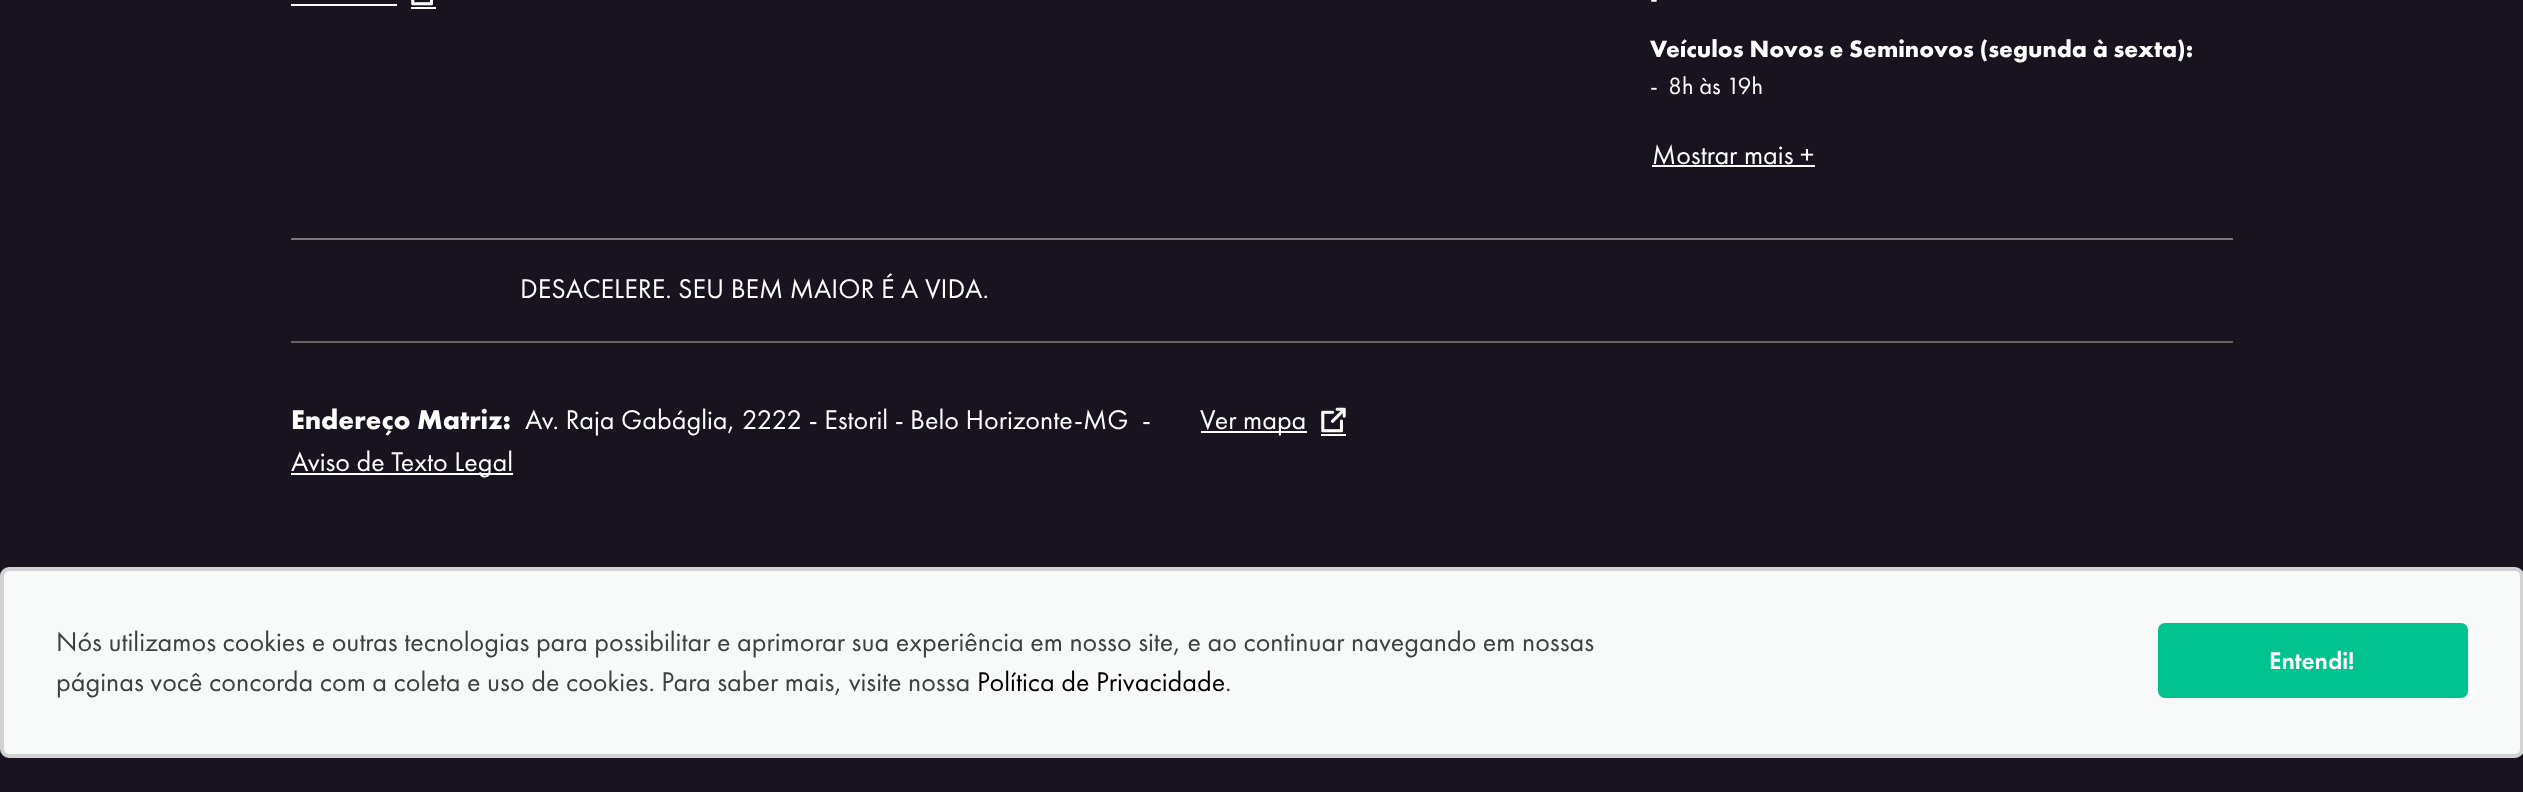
async function draw(canvas) {
  canvas.width = 2523
  canvas.height = 792
  const ctx = canvas.getContext('2d')
  ctx.miterLimit = 4
  ctx.fontKerning = 'normal'
  async function loadImage(src) {
    const img = new Image()
    img.src = src
    await img.decode()
    return img
  }

  ctx.fillStyle = '#18131f'
  ctx.fillRect(0, 0, 2523, 792)
  ctx.fillStyle = '#fff'
  ctx.fillRect(291, 4, 106, 2)
  ctx.drawImage(await loadImage('image0.png'), 411, 0, 22, 6)
  ctx.fillRect(411, 7, 25, 2)
  ctx.font = '24.5px Futura PT'
  ctx.fillText('-', 1650, 6)
  ctx.font = 'bold 24.5px Futura PT'
  ctx.fillText('Veículos Novos e Seminovos (segunda à sexta):', 1650, 57)
  ctx.font = '24.5px Futura PT'
  ctx.fillText('-', 1650, 94)
  ctx.fillText('8h às 19h', 1668, 94)
  ctx.font = '28px Futura PT'
  ctx.fillText('Mostrar mais +', 1652, 164)
  ctx.fillRect(1652, 165, 163, 2)
  ctx.fillStyle = '#7a7a7a'
  ctx.fillRect(291, 238, 1942, 2)
  ctx.fillStyle = '#fff'
  ctx.fillText('DESACELERE. SEU BEM MAIOR É A VIDA.', 520, 298)
  ctx.fillStyle = '#666'
  ctx.fillRect(291, 341, 1942, 2)
  ctx.font = 'bold 28px Futura PT'
  ctx.fillStyle = '#fff'
  ctx.fillText('Endereço Matriz:', 291, 429)
  ctx.font = '28px Futura PT'
  ctx.fillText('Av. Raja Gabáglia, 2222 - Estoril - Belo Horizonte-MG', 525, 429)
  ctx.fillText('-', 1142, 429)
  ctx.fillRect(1201, 431, 106, 2)
  ctx.fillText('Ver mapa', 1200, 429)
  ctx.drawImage(await loadImage('image1.png'), 1321, 407, 25, 26)
  ctx.fillRect(1321, 434, 25, 2)
  ctx.fillRect(291, 473, 222, 2)
  ctx.fillText('Aviso de Texto Legal', 291, 471)
  ctx.fillStyle = '#f8f9f9'
  ctx.beginPath()
  ctx.roundRect(2, 569, 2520, 187, 7)
  ctx.fill()
  ctx.strokeStyle = '#d2d2d2'
  ctx.lineWidth = 4
  ctx.stroke()
  ctx.fillStyle = '#404040'
  ctx.fillText('Nós utilizamos cookies e outras tecnologias para possibilitar e aprimorar sua experiência em nosso site, e ao continuar navegando em nossas', 56, 651)
  ctx.fillText('páginas você concorda com a coleta e uso de cookies. Para saber mais, visite nossa', 56, 691)
  ctx.fillStyle = '#000'
  ctx.fillText('Política de Privacidade', 977, 691)
  ctx.fillStyle = '#404040'
  ctx.fillText('.', 1225, 691)
  ctx.fillStyle = '#00c390'
  ctx.beginPath()
  ctx.roundRect(2158, 623, 310, 75, 7)
  ctx.fill()
  ctx.font = '500 25px Futura PT'
  ctx.fillStyle = '#fff'
  ctx.fillText('Entendi!', 2269, 669)
}

draw(document.querySelector('canvas'))
